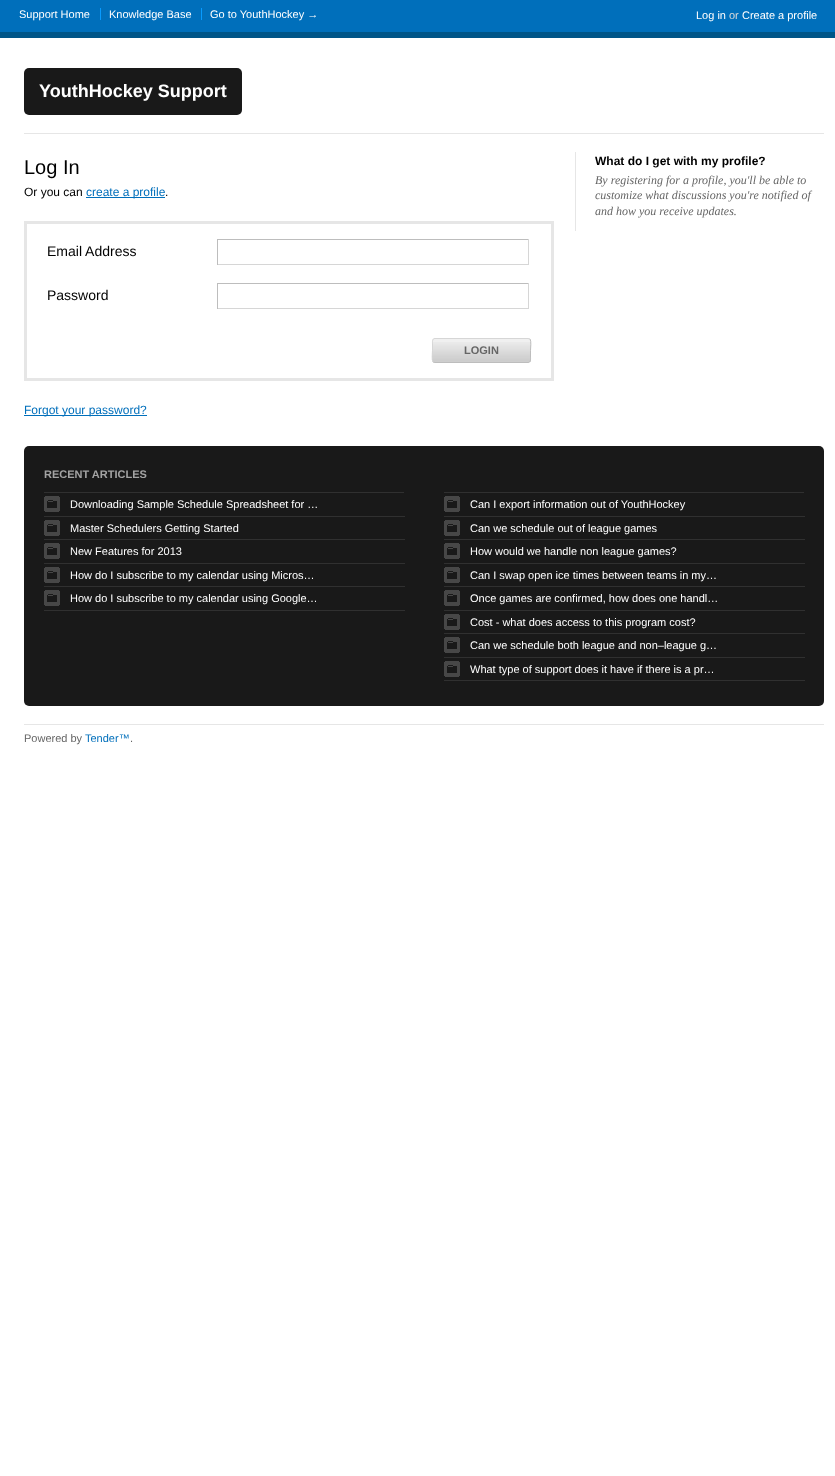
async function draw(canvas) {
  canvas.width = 835
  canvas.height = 1476
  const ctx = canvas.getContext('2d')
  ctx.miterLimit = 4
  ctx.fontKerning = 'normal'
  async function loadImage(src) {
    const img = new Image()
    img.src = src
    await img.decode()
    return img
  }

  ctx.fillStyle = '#fff'
  ctx.fillRect(0, 0, 835, 1476)
  ctx.fillStyle = '#006fbb'
  ctx.fillRect(0, 0, 835, 32)
  ctx.fillStyle = '#058'
  ctx.fillRect(0, 32, 835, 6)
  ctx.font = '11px Liberation Sans'
  ctx.fillStyle = '#fff'
  ctx.fillText('Support Home', 19, 18)
  ctx.fillText('Knowledge Base', 109, 18)
  ctx.fillStyle = '#089bff'
  ctx.fillRect(100, 8, 1, 12)
  ctx.fillStyle = '#fff'
  ctx.fillText('Go to YouthHockey →', 210, 18)
  ctx.fillStyle = '#089bff'
  ctx.fillRect(201, 8, 1, 12)
  ctx.fillStyle = '#fff'
  ctx.fillText('Log in', 696, 19)
  ctx.fillStyle = '#d9d9d9'
  ctx.fillText('or', 729, 19)
  ctx.fillStyle = '#fff'
  ctx.fillText('Create a profile', 742, 19)
  ctx.fillStyle = '#e6e6e6'
  ctx.fillRect(24, 133, 800, 1)
  ctx.fillStyle = '#191919'
  ctx.beginPath()
  ctx.roundRect(24, 68, 218, 47, 5)
  ctx.fill()
  ctx.font = 'bold 18px Liberation Sans'
  ctx.fillStyle = '#fff'
  ctx.fillText('YouthHockey Support', 39, 97)
  ctx.font = '20px Liberation Sans'
  ctx.fillStyle = '#000'
  ctx.fillText('Log In', 24, 174)
  ctx.font = '12px Liberation Sans'
  ctx.fillText('Or you can', 24, 196)
  ctx.fillStyle = '#006fbb'
  ctx.fillRect(86, 197, 79, 1)
  ctx.fillText('create a profile', 86, 196)
  ctx.fillStyle = '#000'
  ctx.fillText('.', 165, 196)
  ctx.strokeStyle = '#e6e6e6'
  ctx.lineWidth = 3
  ctx.strokeRect(25.5, 222.5, 527, 157)
  ctx.font = '14px Liberation Sans'
  ctx.fillText('Email Address', 47, 256)
  ctx.fillStyle = '#bdbdbd'
  ctx.fillRect(217, 239, 312, 1)
  ctx.fillStyle = '#d6d6d6'
  ctx.fillRect(528, 239, 1, 26)
  ctx.fillRect(217, 264, 312, 1)
  ctx.fillStyle = '#bdbdbd'
  ctx.fillRect(217, 239, 1, 26)
  ctx.fillStyle = '#000'
  ctx.fillText('Password', 47, 300)
  ctx.fillStyle = '#bdbdbd'
  ctx.fillRect(217, 283, 312, 1)
  ctx.fillStyle = '#d6d6d6'
  ctx.fillRect(528, 283, 1, 26)
  ctx.fillRect(217, 308, 312, 1)
  ctx.fillStyle = '#bdbdbd'
  ctx.fillRect(217, 283, 1, 26)
  ctx.fillStyle = '#f0f0f0'
  ctx.beginPath()
  ctx.roundRect(432, 338, 99, 25, 3)
  ctx.fill()
  ctx.drawImage(await loadImage('image0.png'), 432, 342, 99, 20)
  ctx.beginPath()
  ctx.moveTo(530, 339)
  ctx.bezierCurveTo(531.5, 341, 530.5, 348, 530.5, 350.5)
  ctx.lineTo(530.5, 357)
  ctx.bezierCurveTo(530.5, 359, 531, 362.5, 528, 362.5)
  ctx.lineTo(435, 362.5)
  ctx.lineTo(433, 362)
  ctx.strokeStyle = '#bdbdbd'
  ctx.lineWidth = 1
  ctx.stroke()
  ctx.beginPath()
  ctx.moveTo(433, 362)
  ctx.bezierCurveTo(431.5, 360, 432.5, 353, 432.5, 350.5)
  ctx.lineTo(432.5, 344)
  ctx.bezierCurveTo(432.5, 342, 432, 338.5, 435, 338.5)
  ctx.lineTo(528, 338.5)
  ctx.lineTo(530, 339)
  ctx.strokeStyle = '#d6d6d6'
  ctx.stroke()
  ctx.font = 'bold 11px Liberation Sans'
  ctx.fillStyle = '#666'
  ctx.fillText('LOGIN', 464, 354)
  ctx.fillStyle = '#006fbb'
  ctx.fillRect(24, 415, 123, 1)
  ctx.font = '12px Liberation Sans'
  ctx.fillText('Forgot your password?', 24, 414)
  ctx.fillStyle = '#e6e6e6'
  ctx.fillRect(575, 152, 1, 79)
  ctx.font = 'bold 12px Liberation Sans'
  ctx.fillStyle = '#000'
  ctx.fillText('What do I get with my profile?', 595, 165)
  ctx.font = 'italic 12px Liberation Serif'
  ctx.fillStyle = '#666'
  ctx.fillText('By registering for a profile, you\'ll be able to', 595, 184)
  ctx.fillText('customize what discussions you\'re notified of', 595, 199)
  ctx.fillText('and how you receive updates.', 595, 215)
  ctx.fillStyle = '#191919'
  ctx.beginPath()
  ctx.roundRect(24, 446, 800, 260, 5)
  ctx.fill()
  ctx.font = 'bold 11px Liberation Sans'
  ctx.fillStyle = '#a3a3a3'
  ctx.fillText('RECENT ARTICLES', 44, 478)
  ctx.fillStyle = '#303030'
  ctx.fillRect(44, 492, 360, 1)
  ctx.drawImage(await loadImage('image1.png'), 44, 496, 16, 16)
  ctx.fillRect(44, 516, 361, 1)
  ctx.font = '11px Liberation Sans'
  ctx.fillStyle = '#fff'
  ctx.fillText('Downloading Sample Schedule Spreadsheet for …', 70, 508)
  ctx.drawImage(await loadImage('image1.png'), 44, 520, 16, 16)
  ctx.fillStyle = '#303030'
  ctx.fillRect(44, 539, 361, 1)
  ctx.fillStyle = '#fff'
  ctx.fillText('Master Schedulers Getting Started', 70, 532)
  ctx.drawImage(await loadImage('image1.png'), 44, 543, 16, 16)
  ctx.fillStyle = '#303030'
  ctx.fillRect(44, 563, 361, 1)
  ctx.fillStyle = '#fff'
  ctx.fillText('New Features for 2013', 70, 555)
  ctx.drawImage(await loadImage('image1.png'), 44, 567, 16, 16)
  ctx.fillStyle = '#303030'
  ctx.fillRect(44, 586, 361, 1)
  ctx.fillStyle = '#fff'
  ctx.fillText('How do I subscribe to my calendar using Micros…', 70, 579)
  ctx.drawImage(await loadImage('image1.png'), 44, 590, 16, 16)
  ctx.fillStyle = '#303030'
  ctx.fillRect(44, 610, 361, 1)
  ctx.fillStyle = '#fff'
  ctx.fillText('How do I subscribe to my calendar using Google…', 70, 602)
  ctx.fillStyle = '#303030'
  ctx.fillRect(444, 492, 360, 1)
  ctx.drawImage(await loadImage('image1.png'), 444, 496, 16, 16)
  ctx.fillRect(444, 516, 361, 1)
  ctx.fillStyle = '#fff'
  ctx.fillText('Can I export information out of YouthHockey', 470, 508)
  ctx.drawImage(await loadImage('image1.png'), 444, 520, 16, 16)
  ctx.fillStyle = '#303030'
  ctx.fillRect(444, 539, 361, 1)
  ctx.fillStyle = '#fff'
  ctx.fillText('Can we schedule out of league games', 470, 532)
  ctx.drawImage(await loadImage('image1.png'), 444, 543, 16, 16)
  ctx.fillStyle = '#303030'
  ctx.fillRect(444, 563, 361, 1)
  ctx.fillStyle = '#fff'
  ctx.fillText('How would we handle non league games?', 470, 555)
  ctx.drawImage(await loadImage('image1.png'), 444, 567, 16, 16)
  ctx.fillStyle = '#303030'
  ctx.fillRect(444, 586, 361, 1)
  ctx.fillStyle = '#fff'
  ctx.fillText('Can I swap open ice times between teams in my…', 470, 579)
  ctx.drawImage(await loadImage('image1.png'), 444, 590, 16, 16)
  ctx.fillStyle = '#303030'
  ctx.fillRect(444, 610, 361, 1)
  ctx.fillStyle = '#fff'
  ctx.fillText('Once games are confirmed, how does one handl…', 470, 602)
  ctx.drawImage(await loadImage('image1.png'), 444, 614, 16, 16)
  ctx.fillStyle = '#303030'
  ctx.fillRect(444, 633, 361, 1)
  ctx.fillStyle = '#fff'
  ctx.fillText('Cost - what does access to this program cost?', 470, 626)
  ctx.drawImage(await loadImage('image1.png'), 444, 637, 16, 16)
  ctx.fillStyle = '#303030'
  ctx.fillRect(444, 657, 361, 1)
  ctx.fillStyle = '#fff'
  ctx.fillText('Can we schedule both league and non–league g…', 470, 649)
  ctx.drawImage(await loadImage('image1.png'), 444, 661, 16, 16)
  ctx.fillStyle = '#303030'
  ctx.fillRect(444, 680, 361, 1)
  ctx.fillStyle = '#fff'
  ctx.fillText('What type of support does it have if there is a pr…', 470, 673)
  ctx.fillStyle = '#e6e6e6'
  ctx.fillRect(24, 724, 800, 1)
  ctx.fillStyle = '#666'
  ctx.fillText('Powered by', 24, 742)
  ctx.fillStyle = '#006fbb'
  ctx.fillText('Tender™', 85, 742)
  ctx.fillStyle = '#666'
  ctx.fillText('.', 130, 742)
}

draw(document.querySelector('canvas'))
